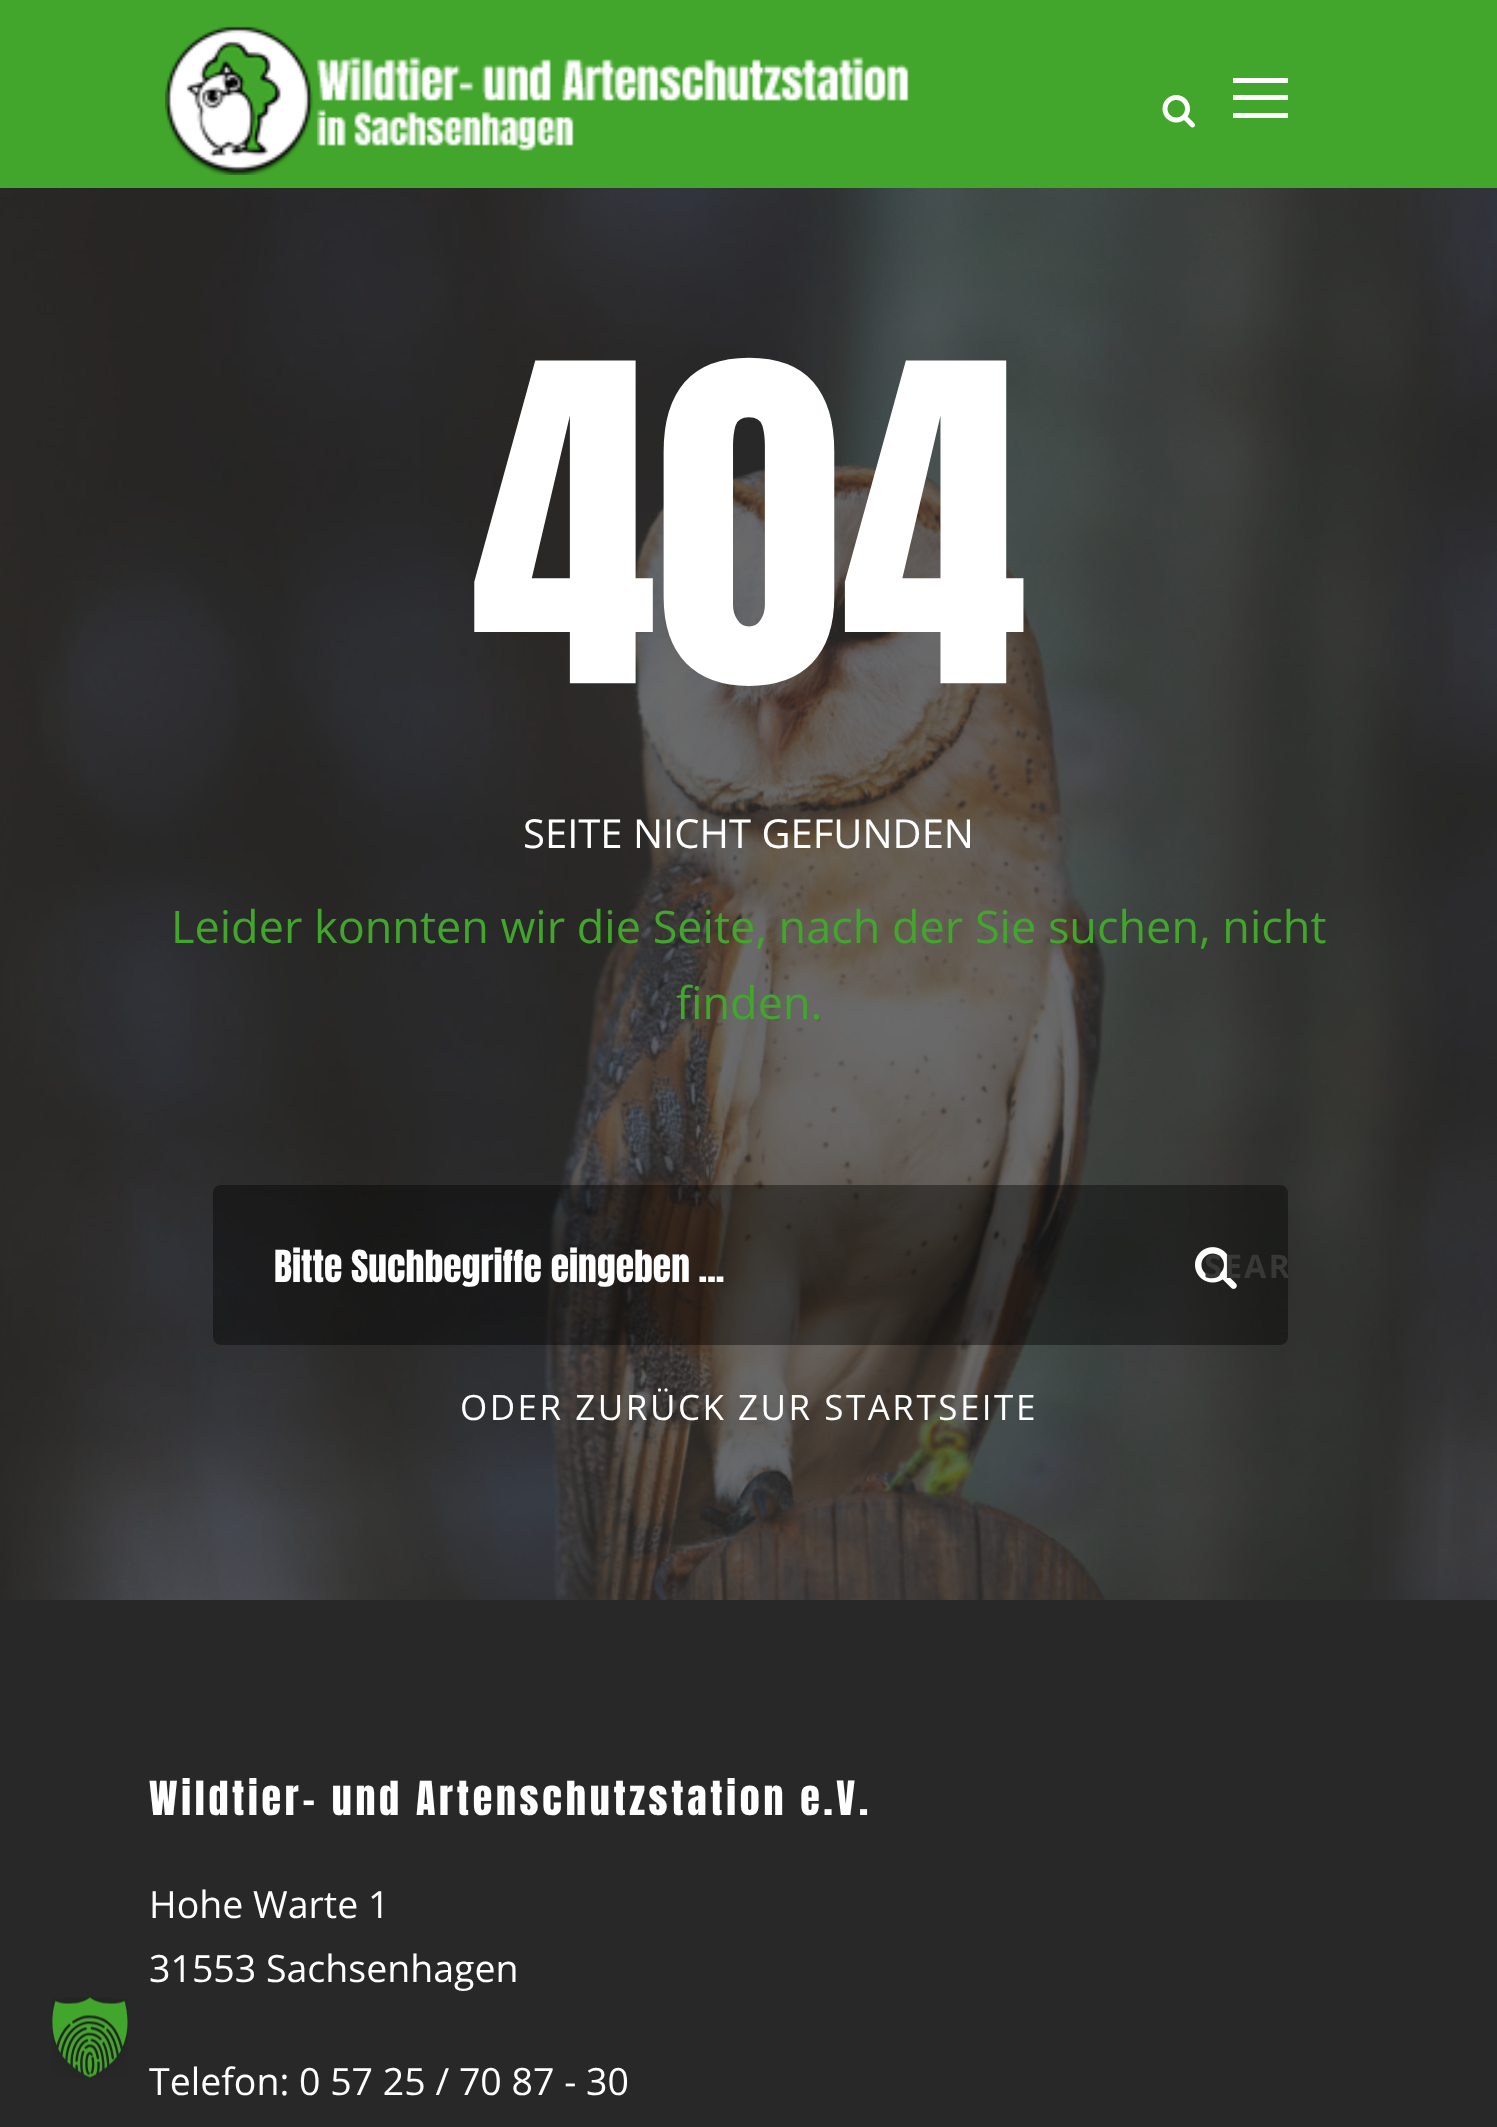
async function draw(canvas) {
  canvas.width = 1497
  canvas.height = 2127
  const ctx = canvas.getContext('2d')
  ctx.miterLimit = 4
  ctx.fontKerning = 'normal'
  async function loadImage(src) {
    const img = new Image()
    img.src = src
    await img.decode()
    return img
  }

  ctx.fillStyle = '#282828'
  ctx.fillRect(0, 0, 1497, 2127)
  ctx.fillStyle = '#41a62b'
  ctx.fillRect(0, 0, 1497, 188)
  ctx.drawImage(await loadImage('image0.png'), 165, 26, 744, 149)
  ctx.drawImage(await loadImage('image1.png'), 1162, 95, 33, 33)
  ctx.fillStyle = '#fff'
  ctx.fillRect(1233, 78, 55, 5)
  ctx.fillRect(1233, 95, 55, 5)
  ctx.fillRect(1233, 113, 55, 5)
  ctx.drawImage(await loadImage('image2.png'), 52, 1997, 76, 81)
  ctx.fillStyle = '#333'
  ctx.fillRect(0, 188, 1497, 1412)
  ctx.drawImage(await loadImage('image3.png'), 0, 188, 1497, 1412)
  ctx.font = '375px Anton'
  ctx.fillStyle = '#fff'
  ctx.fillText('404', 471, 683)
  ctx.font = '40px Open Sans'
  ctx.fillText('SEITE NICHT GEFUNDEN', 523, 848)
  ctx.font = '45px Open Sans'
  ctx.fillStyle = '#41a62b'
  ctx.fillText('Leider konnten wir die Seite, nach der Sie suchen, nicht', 171, 943)
  ctx.fillText('finden.', 676, 1019)
  ctx.fillStyle = '#00000066'
  ctx.beginPath()
  ctx.roundRect(213, 1185, 1075, 160, 8)
  ctx.fill()
  ctx.font = '37.5px Anton'
  ctx.fillStyle = '#fff'
  ctx.fillText('Bitte Suchbegriffe eingeben ...', 274, 1282)
  ctx.drawImage(await loadImage('image4.png'), 1195, 1247, 42, 42)
  ctx.save()
  ctx.beginPath()
  ctx.rect(1123, 1185, 165, 160)
  ctx.clip()
  ctx.letterSpacing = '2px'
  ctx.font = 'bold 32.5px Open Sans'
  ctx.fillStyle = '#383837'
  ctx.fillText('SEAR', 1204, 1278)
  ctx.restore()
  ctx.letterSpacing = '2.5px'
  ctx.font = '35px Open Sans'
  ctx.fillText('ODER ZURÜCK ZUR STARTSEITE', 460, 1420)
  ctx.letterSpacing = '3.75px'
  ctx.font = '40px Anton'
  ctx.fillText('Wildtier- und Artenschutzstation e.V.', 149, 1815)
  ctx.letterSpacing = '0px'
  ctx.font = '37.5px Open Sans'
  ctx.fillText('Hohe Warte 1', 149, 1918)
  ctx.fillText('31553 Sachsenhagen', 149, 1982)
  ctx.fillText('Telefon: 0 57 25 / 70 87 - 30', 149, 2095)
}

draw(document.querySelector('canvas'))
